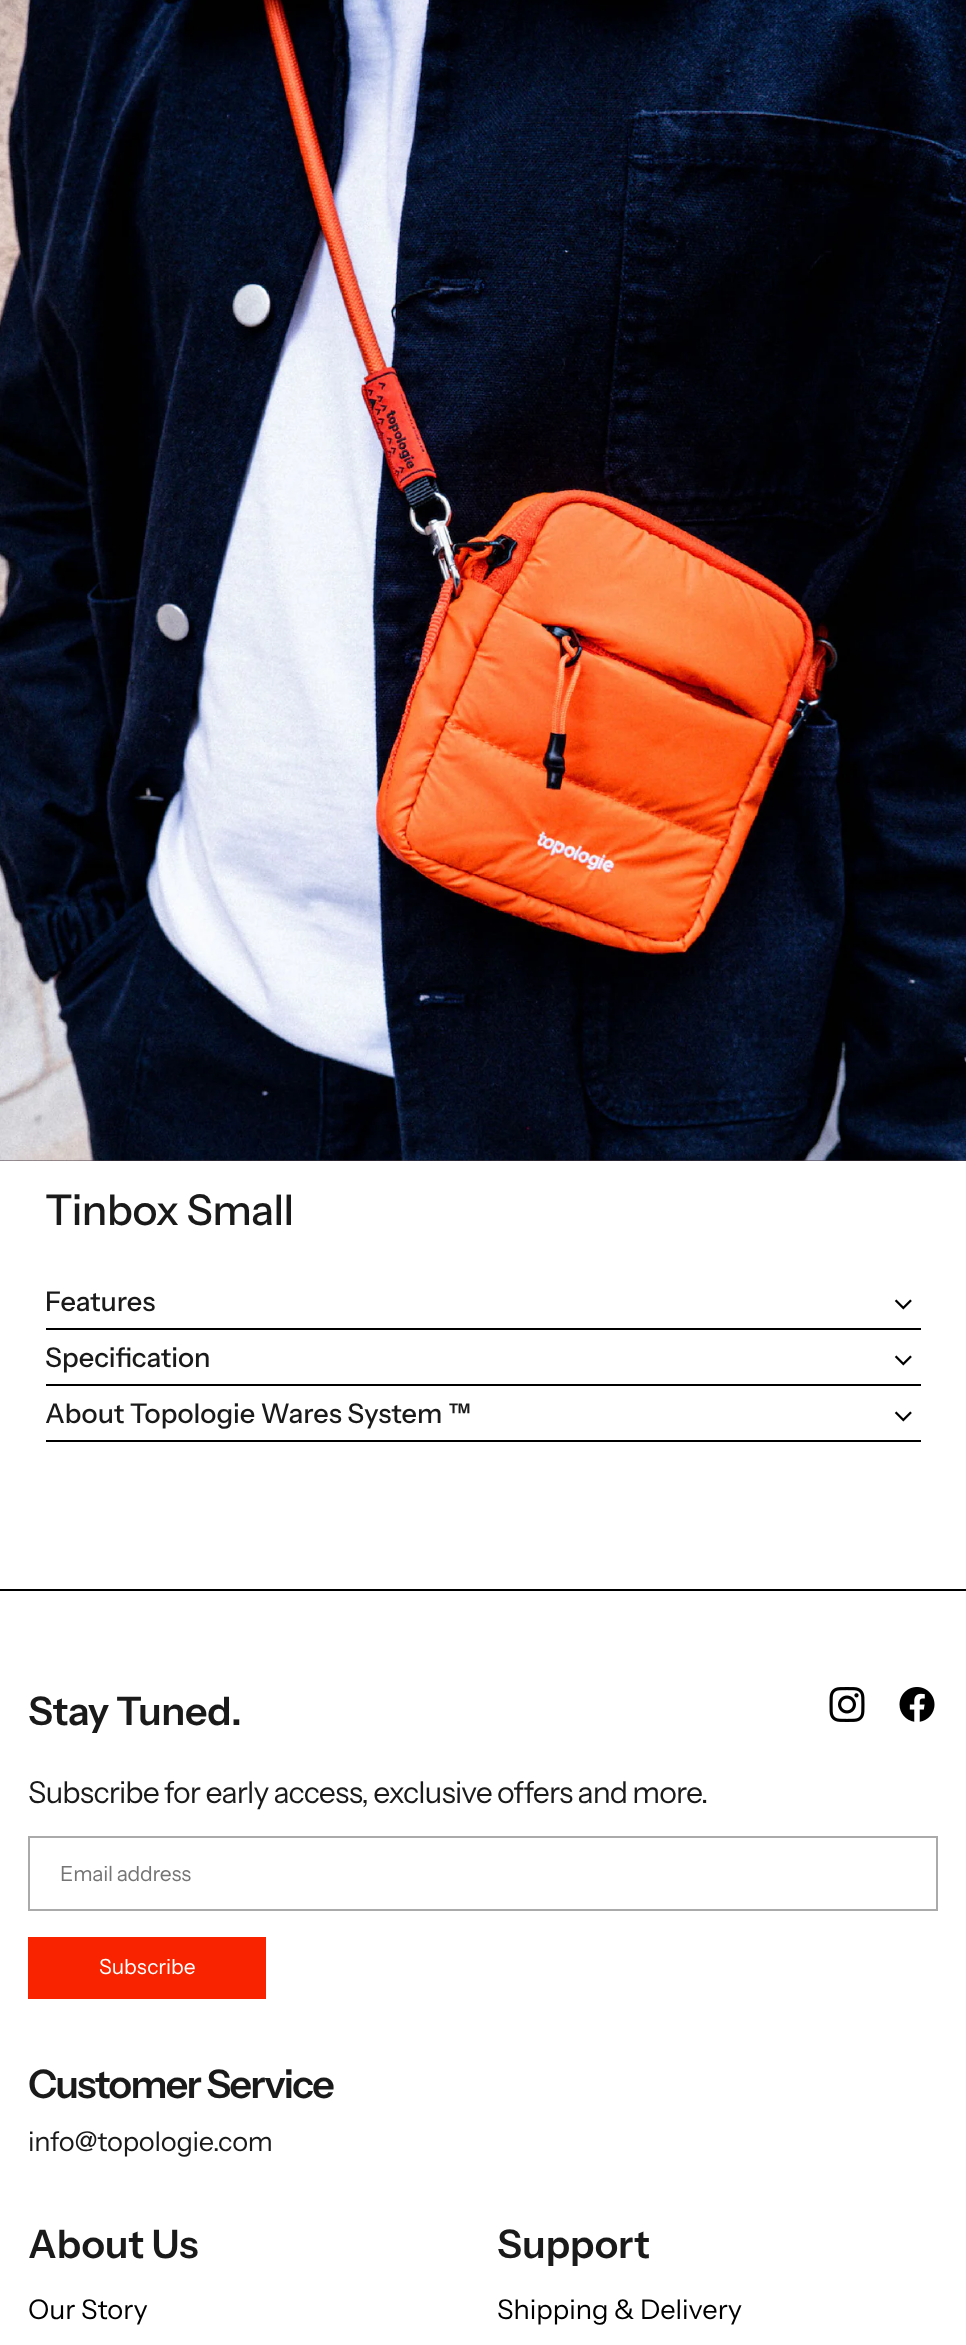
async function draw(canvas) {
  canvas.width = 966
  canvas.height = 2345
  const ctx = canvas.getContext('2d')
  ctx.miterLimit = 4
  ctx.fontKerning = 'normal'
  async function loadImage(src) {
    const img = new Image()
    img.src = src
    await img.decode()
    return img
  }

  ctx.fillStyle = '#fff'
  ctx.fillRect(0, 0, 966, 2345)
  ctx.fillStyle = '#000'
  ctx.fillRect(0, 1589, 966, 2)
  ctx.fillStyle = '#4e4148'
  ctx.fillRect(0, 1160, 966, 1)
  ctx.drawImage(await loadImage('image0.png'), 0, 0, 966, 1161)
  ctx.letterSpacing = '-0.5px'
  ctx.font = '500 42.25px Instrument Sans'
  ctx.fillStyle = '#1a1a1a'
  ctx.fillText('Tinbox Small', 45, 1225)
  ctx.fillStyle = '#000'
  ctx.fillRect(46, 1328, 875, 2)
  ctx.letterSpacing = '0px'
  ctx.font = '500 27.2px Instrument Sans'
  ctx.fillStyle = '#1a1a1a'
  ctx.fillText('Features', 45, 1311)
  ctx.drawImage(await loadImage('image1.png'), 894, 1299, 18, 11)
  ctx.fillStyle = '#000'
  ctx.fillRect(46, 1384, 875, 2)
  ctx.fillStyle = '#1a1a1a'
  ctx.fillText('Specification', 45, 1367)
  ctx.drawImage(await loadImage('image1.png'), 894, 1355, 18, 11)
  ctx.fillStyle = '#000'
  ctx.fillRect(46, 1440, 875, 2)
  ctx.fillStyle = '#1a1a1a'
  ctx.fillText('About Topologie Wares System ™', 45, 1423)
  ctx.drawImage(await loadImage('image1.png'), 894, 1411, 18, 11)
  ctx.letterSpacing = '-0.4px'
  ctx.font = '600 39.25px Instrument Sans'
  ctx.fillText('Stay Tuned.', 28, 1725)
  ctx.drawImage(await loadImage('image2.png'), 829, 1687, 36, 35)
  ctx.drawImage(await loadImage('image3.png'), 899, 1687, 36, 35)
  ctx.letterSpacing = '-0.9px'
  ctx.font = '30.2px Instrument Sans'
  ctx.fillText('Subscribe for early access, exclusive offers and more.', 28, 1803)
  ctx.strokeStyle = '#aaa'
  ctx.lineWidth = 2
  ctx.strokeRect(29, 1837, 908, 73)
  ctx.letterSpacing = '-0.25px'
  ctx.font = '21px Instrument Sans'
  ctx.fillStyle = '#757575'
  ctx.fillText('Email address', 60, 1881)
  ctx.fillStyle = '#f92300'
  ctx.fillRect(28, 1937, 238, 62)
  ctx.letterSpacing = '0px'
  ctx.fillStyle = '#fff'
  ctx.fillText('Subscribe', 99, 1974)
  ctx.letterSpacing = '-1.6px'
  ctx.font = '600 39.25px Instrument Sans'
  ctx.fillStyle = '#1a1a1a'
  ctx.fillText('Customer Service', 28, 2098)
  ctx.letterSpacing = '-0.25px'
  ctx.font = '27.2px Instrument Sans'
  ctx.fillText('info@topologie.com', 28, 2151)
  ctx.letterSpacing = '0px'
  ctx.font = '600 39.25px Instrument Sans'
  ctx.fillText('About Us', 28, 2258)
  ctx.font = '27.2px Instrument Sans'
  ctx.fillStyle = '#000'
  ctx.fillText('Our Story', 28, 2319)
  ctx.font = '600 39.25px Instrument Sans'
  ctx.fillStyle = '#1a1a1a'
  ctx.fillText('Support', 497, 2258)
  ctx.font = '27.2px Instrument Sans'
  ctx.fillStyle = '#000'
  ctx.fillText('Shipping & Delivery', 497, 2319)
}

draw(document.querySelector('canvas'))
